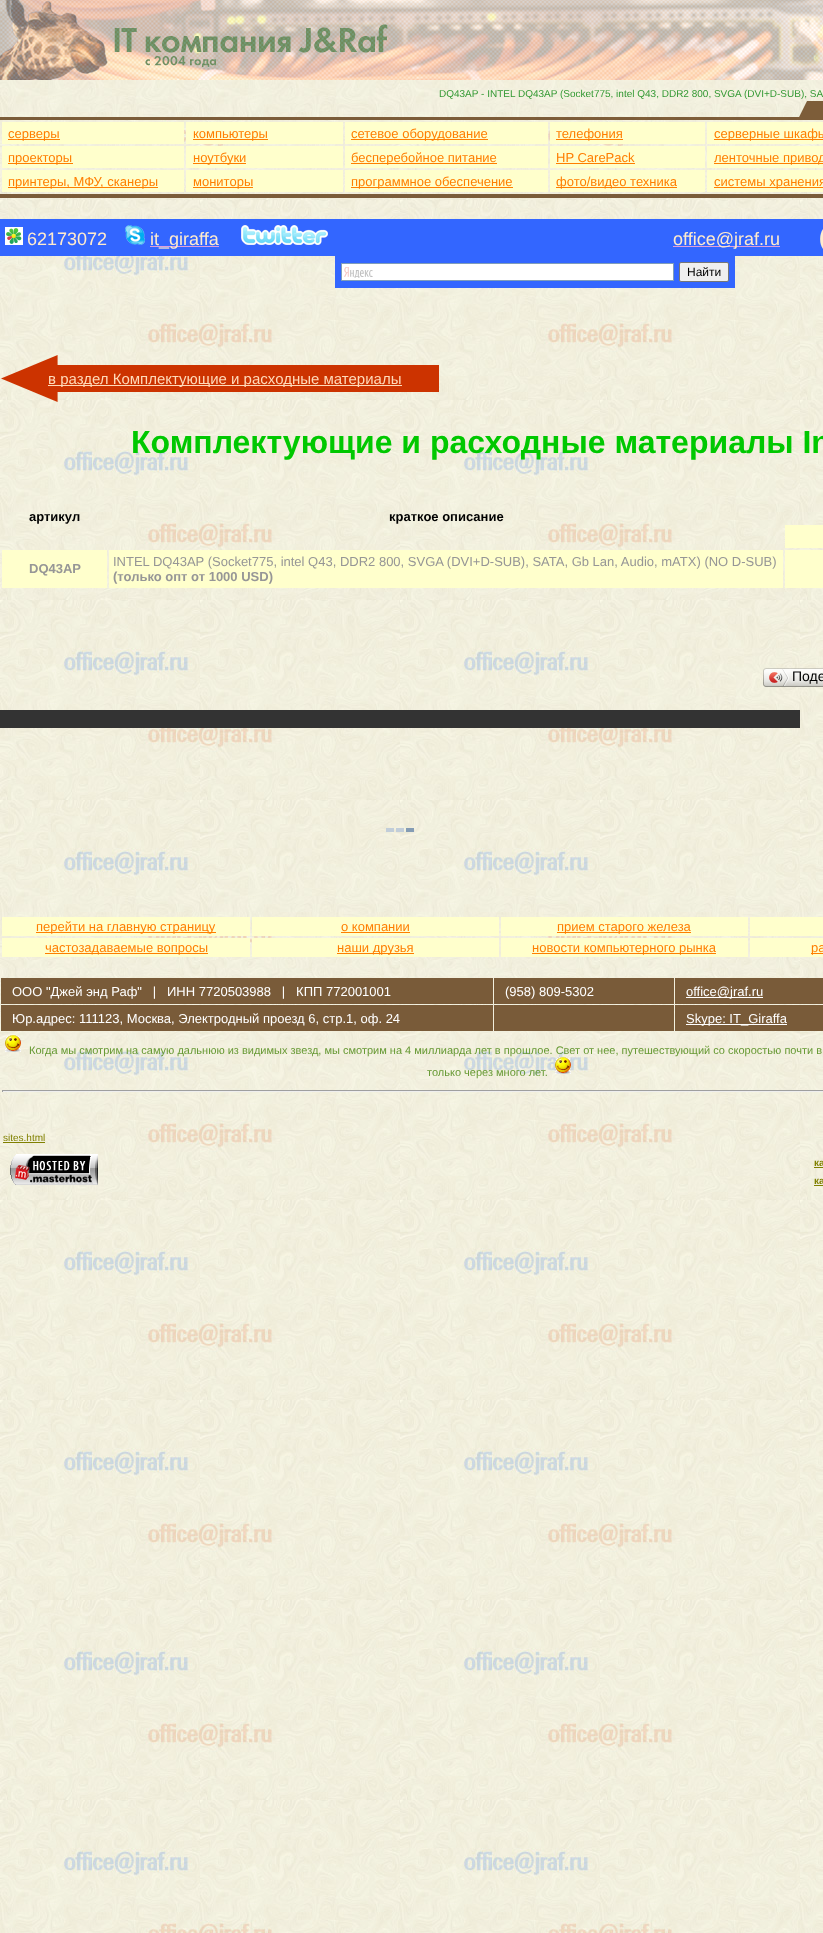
async function draw(canvas) {
  canvas.width = 823
  canvas.height = 1933
  const ctx = canvas.getContext('2d')
  ctx.miterLimit = 4
  ctx.fontKerning = 'normal'
  async function loadImage(src) {
    const img = new Image()
    img.src = src
    await img.decode()
    return img
  }

  ctx.fillStyle = '#fff'
  ctx.fillRect(0, 0, 823, 1933)
  ctx.drawImage(await loadImage('image0.png'), 0, 80, 823, 1853)
  ctx.drawImage(await loadImage('image1.png'), 0, 0, 823, 80)
  ctx.font = '10px Liberation Sans'
  ctx.fillStyle = '#393'
  ctx.fillText('DQ43AP - INTEL DQ43AP (Socket775, intel Q43, DDR2 800, SVGA (DVI+D-SUB), SA', 439, 97)
  ctx.drawImage(await loadImage('image2.png'), 0, 117, 797, 3)
  ctx.drawImage(await loadImage('image3.png'), 797, 101, 26, 19)
  ctx.fillStyle = '#ffc'
  ctx.fillRect(2, 122, 182, 22)
  ctx.fillStyle = '#ff7e00'
  ctx.fillRect(8, 139, 52, 1)
  ctx.font = '13px Liberation Sans'
  ctx.fillText('серверы', 8, 138)
  ctx.fillStyle = '#ffc'
  ctx.fillRect(186, 122, 157, 22)
  ctx.fillStyle = '#ff7e00'
  ctx.fillRect(193, 139, 75, 1)
  ctx.fillText('компьютеры', 193, 138)
  ctx.fillStyle = '#ffc'
  ctx.fillRect(345, 122, 203, 22)
  ctx.fillStyle = '#ff7e00'
  ctx.fillRect(351, 139, 137, 1)
  ctx.fillText('сетевое оборудование', 351, 138)
  ctx.fillStyle = '#ffc'
  ctx.fillRect(550, 122, 155, 22)
  ctx.fillStyle = '#ff7e00'
  ctx.fillRect(556, 139, 67, 1)
  ctx.fillText('телефония', 556, 138)
  ctx.fillStyle = '#ffc'
  ctx.fillRect(707, 122, 116, 22)
  ctx.fillStyle = '#ff7e00'
  ctx.fillRect(714, 139, 109, 1)
  ctx.fillText('серверные шкафы', 714, 138)
  ctx.fillStyle = '#ffc'
  ctx.fillRect(2, 146, 182, 22)
  ctx.fillStyle = '#ff7e00'
  ctx.fillRect(8, 163, 65, 1)
  ctx.fillText('проекторы', 8, 162)
  ctx.fillStyle = '#ffc'
  ctx.fillRect(186, 146, 157, 22)
  ctx.fillStyle = '#ff7e00'
  ctx.fillRect(193, 163, 53, 1)
  ctx.fillText('ноутбуки', 193, 162)
  ctx.fillStyle = '#ffc'
  ctx.fillRect(345, 146, 203, 22)
  ctx.fillStyle = '#ff7e00'
  ctx.fillRect(351, 163, 146, 1)
  ctx.fillText('бесперебойное питание', 351, 162)
  ctx.fillStyle = '#ffc'
  ctx.fillRect(550, 146, 155, 22)
  ctx.fillStyle = '#ff7e00'
  ctx.fillText('HP CarePack', 556, 162)
  ctx.fillRect(556, 163, 79, 1)
  ctx.fillStyle = '#ffc'
  ctx.fillRect(707, 146, 116, 22)
  ctx.fillStyle = '#ff7e00'
  ctx.fillRect(714, 163, 109, 1)
  ctx.fillText('ленточные привод', 714, 162)
  ctx.fillStyle = '#ffc'
  ctx.fillRect(2, 170, 182, 22)
  ctx.fillStyle = '#ff7e00'
  ctx.fillRect(8, 187, 150, 1)
  ctx.fillText('принтеры, МФУ, сканеры', 8, 186)
  ctx.fillStyle = '#ffc'
  ctx.fillRect(186, 170, 157, 22)
  ctx.fillStyle = '#ff7e00'
  ctx.fillRect(193, 187, 60, 1)
  ctx.fillText('мониторы', 193, 186)
  ctx.fillStyle = '#ffc'
  ctx.fillRect(345, 170, 203, 22)
  ctx.fillStyle = '#ff7e00'
  ctx.fillRect(351, 187, 162, 1)
  ctx.fillText('программное обеспечение', 351, 186)
  ctx.fillStyle = '#ffc'
  ctx.fillRect(550, 170, 155, 22)
  ctx.fillStyle = '#ff7e00'
  ctx.fillRect(556, 187, 121, 1)
  ctx.fillText('фото/видео техника', 556, 186)
  ctx.fillStyle = '#ffc'
  ctx.fillRect(707, 170, 116, 22)
  ctx.fillStyle = '#ff7e00'
  ctx.fillRect(714, 187, 109, 1)
  ctx.fillText('системы хранения', 714, 186)
  ctx.fillStyle = '#7b5c39'
  ctx.fillRect(0, 194, 450, 4)
  ctx.fillStyle = '#7a5c39'
  ctx.fillRect(450, 194, 373, 4)
  ctx.fillStyle = '#36f'
  ctx.fillRect(0, 219, 823, 37)
  ctx.drawImage(await loadImage('image4.png'), 5, 227, 18, 18)
  ctx.font = '18px Liberation Sans'
  ctx.fillStyle = '#ffebcd'
  ctx.fillText('62173072', 27, 245)
  ctx.drawImage(await loadImage('image5.png'), 125, 225, 20, 20)
  ctx.fillStyle = '#dda0dd'
  ctx.fillRect(150, 246, 69, 1)
  ctx.fillStyle = '#ffebcd'
  ctx.fillText('it_giraffa', 150, 245)
  ctx.drawImage(await loadImage('image6.png'), 241, 225, 87, 20)
  ctx.fillStyle = '#dda0dd'
  ctx.fillRect(673, 246, 107, 1)
  ctx.fillStyle = '#ffebcd'
  ctx.fillText('office@jraf.ru', 673, 245)
  ctx.font = 'bold 23px Liberation Sans'
  ctx.fillText('(', 819, 245)
  ctx.fillStyle = '#36f'
  ctx.fillRect(335, 256, 400, 32)
  ctx.fillStyle = '#fff'
  ctx.fillRect(342, 264, 331, 16)
  ctx.drawImage(await loadImage('image7.png'), 344, 267, 29, 11)
  ctx.strokeStyle = '#7f9db9'
  ctx.strokeRect(341.5, 263.5, 332, 17)
  ctx.fillStyle = '#efefef'
  ctx.beginPath()
  ctx.roundRect(679.5, 262.5, 49, 19, 1.5)
  ctx.fill()
  ctx.strokeStyle = '#767676'
  ctx.stroke()
  ctx.font = '12px Liberation Sans'
  ctx.fillStyle = '#000'
  ctx.fillText('Найти', 687, 276)
  ctx.drawImage(await loadImage('image8.png'), 1, 355, 438, 47)
  ctx.fillStyle = '#ffdab9'
  ctx.fillRect(48, 385, 354, 1)
  ctx.font = '15px Liberation Sans'
  ctx.fillText('в раздел Комплектующие и расходные материалы', 48, 384)
  ctx.font = 'bold 32px Liberation Sans'
  ctx.fillStyle = '#00c800'
  ctx.fillText('Комплектующие и расходные материалы In', 131, 453)
  ctx.font = 'bold 13px Liberation Sans'
  ctx.fillStyle = '#000'
  ctx.fillText('артикул', 29, 521)
  ctx.fillText('краткое описание', 389, 521)
  ctx.fillStyle = '#ffc'
  ctx.fillRect(785, 525, 38, 23)
  ctx.fillRect(2, 550, 105, 38)
  ctx.fillStyle = '#969696'
  ctx.fillText('DQ43AP', 29, 573)
  ctx.fillStyle = '#ffc'
  ctx.fillRect(109, 550, 674, 38)
  ctx.font = '13px Liberation Sans'
  ctx.fillStyle = '#969696'
  ctx.fillText('INTEL DQ43AP (Socket775, intel Q43, DDR2 800, SVGA (DVI+D-SUB), SATA, Gb Lan, Audio, mATX) (NO D-SUB)', 113, 566)
  ctx.font = 'bold 13px Liberation Sans'
  ctx.fillText('(только опт от 1000 USD)', 113, 581)
  ctx.fillStyle = '#ffc'
  ctx.fillRect(785, 550, 38, 38)
  ctx.drawImage(await loadImage('image9.png'), 766, 668, 57, 19)
  ctx.drawImage(await loadImage('image10.png'), 763, 668, 3, 19)
  ctx.drawImage(await loadImage('image11.png'), 769, 669, 20, 17)
  ctx.font = '14px Liberation Sans'
  ctx.fillStyle = '#000'
  ctx.fillText('Поде', 792, 681)
  ctx.fillStyle = '#333'
  ctx.fillRect(0, 710, 800, 18)
  ctx.drawImage(await loadImage('image12.png'), 386, 828, 28, 4)
  ctx.fillStyle = '#ffc'
  ctx.fillRect(2, 917, 248, 19)
  ctx.fillStyle = '#ff7e00'
  ctx.fillRect(36, 932, 180, 1)
  ctx.font = '13px Liberation Sans'
  ctx.fillText('перейти на главную страницу', 36, 931)
  ctx.fillStyle = '#ffc'
  ctx.fillRect(252, 917, 247, 19)
  ctx.fillStyle = '#ff7e00'
  ctx.fillText('о компании', 341, 931)
  ctx.fillRect(341, 932, 69, 1)
  ctx.fillStyle = '#ffc'
  ctx.fillRect(501, 917, 247, 19)
  ctx.fillStyle = '#ff7e00'
  ctx.fillRect(557, 932, 134, 1)
  ctx.fillText('прием старого железа', 557, 931)
  ctx.fillStyle = '#ffc'
  ctx.fillRect(750, 917, 73, 19)
  ctx.fillRect(2, 938, 248, 19)
  ctx.fillStyle = '#ff7e00'
  ctx.fillRect(45, 953, 163, 1)
  ctx.fillText('частозадаваемые вопросы', 45, 952)
  ctx.fillStyle = '#ffc'
  ctx.fillRect(252, 938, 247, 19)
  ctx.fillStyle = '#ff7e00'
  ctx.fillRect(337, 953, 77, 1)
  ctx.fillText('наши друзья', 337, 952)
  ctx.fillStyle = '#ffc'
  ctx.fillRect(501, 938, 247, 19)
  ctx.fillStyle = '#ff7e00'
  ctx.fillRect(532, 953, 184, 1)
  ctx.fillText('новости компьютерного рынка', 532, 952)
  ctx.fillStyle = '#ffc'
  ctx.fillRect(750, 938, 73, 19)
  ctx.fillStyle = '#ff7e00'
  ctx.fillRect(811, 953, 12, 1)
  ctx.fillText('ра', 811, 952)
  ctx.fillStyle = '#795b39'
  ctx.fillRect(1, 978, 492, 26)
  ctx.fillStyle = '#fff'
  ctx.fillText('ООО "Джей энд Раф"   |   ИНН 7720503988   |   КПП 772001001', 12, 996)
  ctx.fillStyle = '#795b39'
  ctx.fillRect(494, 978, 180, 26)
  ctx.fillStyle = '#fff'
  ctx.fillText('(958) 809-5302', 505, 996)
  ctx.fillStyle = '#795b39'
  ctx.fillRect(675, 978, 148, 26)
  ctx.fillStyle = '#fff'
  ctx.fillRect(686, 997, 77, 1)
  ctx.fillText('office@jraf.ru', 686, 996)
  ctx.fillStyle = '#795b39'
  ctx.fillRect(1, 1005, 492, 26)
  ctx.fillStyle = '#fff'
  ctx.fillText('Юр.адрес: 111123, Москва, Электродный проезд 6, стр.1, оф. 24', 12, 1023)
  ctx.fillStyle = '#795b39'
  ctx.fillRect(494, 1005, 180, 26)
  ctx.fillRect(675, 1005, 148, 26)
  ctx.fillStyle = '#fff'
  ctx.fillRect(686, 1024, 101, 1)
  ctx.fillText('Skype: IT_Giraffa', 686, 1023)
  ctx.drawImage(await loadImage('image13.png'), 5, 1035, 16, 17)
  ctx.font = '11px Liberation Sans'
  ctx.fillStyle = '#693'
  ctx.fillText('Когда мы смотрим на самую дальнюю из видимых звезд, мы смотрим на 4 миллиарда лет в прошлое. Свет от нее, путешествующий со скоростью почти в', 29, 1054)
  ctx.fillText('только через много лет.', 427, 1076)
  ctx.drawImage(await loadImage('image14.png'), 555, 1057, 16, 17)
  ctx.fillStyle = '#9f9f9f'
  ctx.fillRect(2, 1090, 821, 1)
  ctx.fillStyle = '#eee'
  ctx.fillRect(2, 1091, 821, 1)
  ctx.fillStyle = '#9f9f9f'
  ctx.fillRect(2, 1090, 1, 2)
  ctx.font = '10px Liberation Sans'
  ctx.fillStyle = '#808000'
  ctx.fillText('sites.html', 3, 1141)
  ctx.fillRect(3, 1142, 42, 1)
  ctx.drawImage(await loadImage('image15.png'), 10, 1154, 88, 31)
  ctx.font = 'bold 10px Liberation Sans'
  ctx.fillText('ка', 814, 1166)
  ctx.fillRect(814, 1167, 9, 1)
  ctx.fillText('ка', 814, 1184)
  ctx.fillRect(814, 1185, 9, 1)
}

draw(document.querySelector('canvas'))
